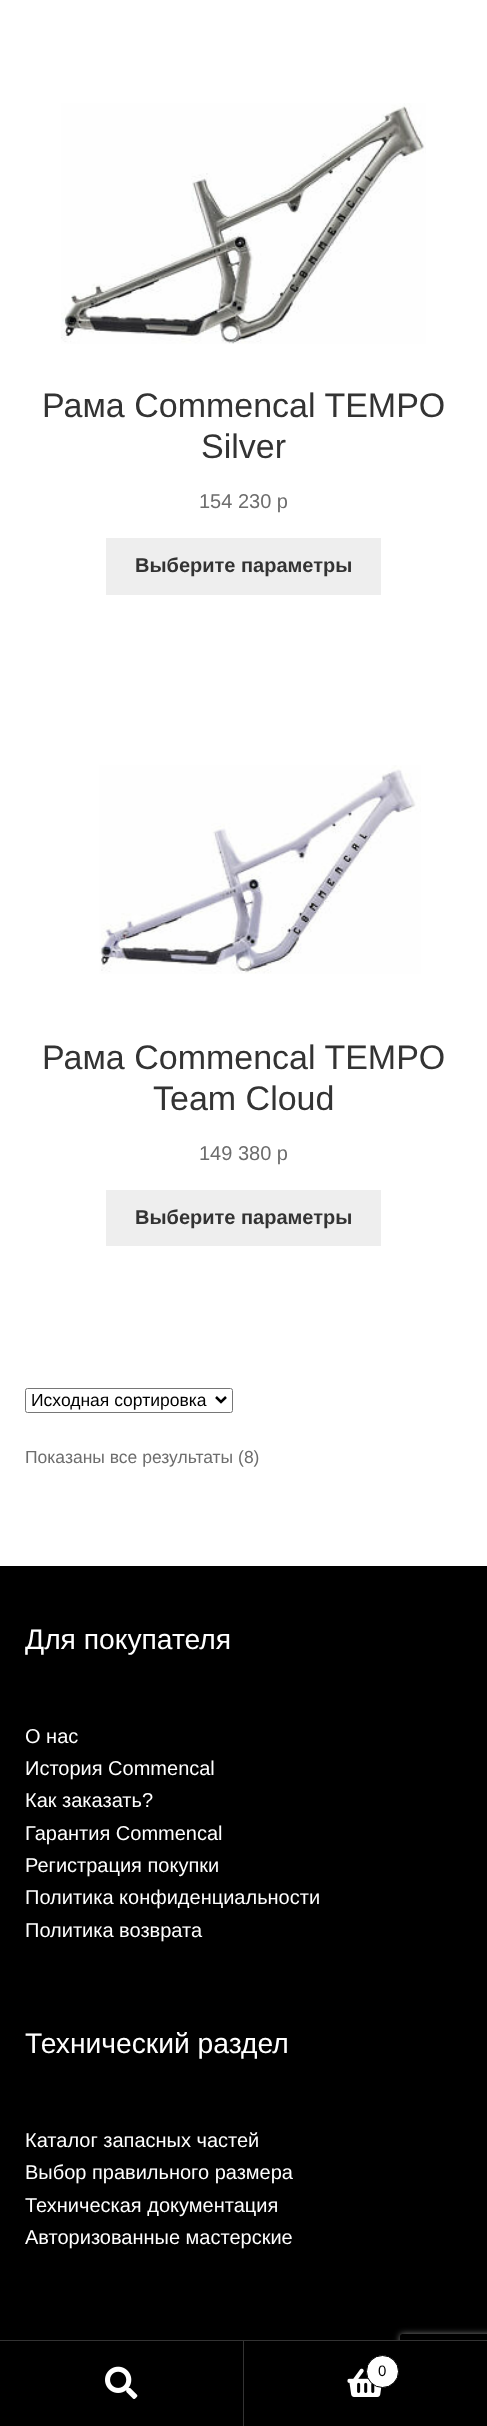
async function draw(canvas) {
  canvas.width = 487
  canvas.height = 2426
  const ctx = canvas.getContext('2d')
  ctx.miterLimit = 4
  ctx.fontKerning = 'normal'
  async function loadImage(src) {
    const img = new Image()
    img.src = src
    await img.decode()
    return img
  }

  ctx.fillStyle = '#fff'
  ctx.fillRect(0, 0, 487, 2426)
  ctx.drawImage(await loadImage('image0.png'), 61, 103, 365, 241)
  ctx.font = '34px Liberation Sans'
  ctx.fillStyle = '#333'
  ctx.fillText('Рама Commencal TEMPO', 42, 417)
  ctx.fillText('Silver', 201, 458)
  ctx.font = '20px Liberation Sans'
  ctx.fillStyle = '#6d6d6d'
  ctx.fillText('154 230 р', 199, 508)
  ctx.fillStyle = '#eee'
  ctx.fillRect(106, 538, 275, 57)
  ctx.font = 'bold 20px Liberation Sans'
  ctx.fillStyle = '#333'
  ctx.fillText('Выберите параметры', 135, 572)
  ctx.drawImage(await loadImage('image1.png'), 99, 765, 322, 209)
  ctx.font = '34px Liberation Sans'
  ctx.fillText('Рама Commencal TEMPO', 42, 1069)
  ctx.fillText('Team Cloud', 153, 1110)
  ctx.font = '20px Liberation Sans'
  ctx.fillStyle = '#6d6d6d'
  ctx.fillText('149 380 р', 199, 1160)
  ctx.fillStyle = '#eee'
  ctx.fillRect(106, 1190, 275, 56)
  ctx.font = 'bold 20px Liberation Sans'
  ctx.fillStyle = '#333'
  ctx.fillText('Выберите параметры', 135, 1224)
  ctx.beginPath()
  ctx.roundRect(25.5, 1388.5, 207, 24, 2)
  ctx.strokeStyle = '#767676'
  ctx.stroke()
  ctx.beginPath()
  ctx.moveTo(216, 1397)
  ctx.lineTo(221, 1402)
  ctx.lineTo(226, 1397)
  ctx.strokeStyle = '#000'
  ctx.lineWidth = 2.5
  ctx.stroke()
  ctx.font = '17.5px Liberation Sans'
  ctx.fillStyle = '#000'
  ctx.fillText('Исходная сортировка', 31, 1406)
  ctx.fillStyle = '#6d6d6d'
  ctx.fillText('Показаны все результаты (8)', 25, 1463)
  ctx.fillStyle = '#000'
  ctx.fillRect(0, 1566, 487, 774)
  ctx.font = '28.25px Liberation Sans'
  ctx.fillStyle = '#fff'
  ctx.fillText('Для покупателя', 25, 1649)
  ctx.font = '20px Liberation Sans'
  ctx.fillText('О нас', 25, 1743)
  ctx.fillText('История Commencal', 25, 1775)
  ctx.fillText('Как заказать?', 25, 1807)
  ctx.fillText('Гарантия Commencal', 25, 1840)
  ctx.fillText('Регистрация покупки', 25, 1872)
  ctx.fillText('Политика конфиденциальности', 25, 1904)
  ctx.fillText('Политика возврата', 25, 1937)
  ctx.font = '28.25px Liberation Sans'
  ctx.fillText('Технический раздел', 25, 2053)
  ctx.font = '20px Liberation Sans'
  ctx.fillText('Каталог запасных частей', 25, 2147)
  ctx.fillText('Выбор правильного размера', 25, 2179)
  ctx.fillText('Техническая документация', 25, 2212)
  ctx.fillText('Авторизованные мастерские', 25, 2244)
  ctx.fillStyle = '#000000b3'
  ctx.filter = 'blur(4px)'
  ctx.beginPath()
  ctx.rect(0, 2340, 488, 86)
  ctx.fill()
  ctx.filter = 'none'
  ctx.save()
  ctx.beginPath()
  ctx.moveTo(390, 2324)
  ctx.lineTo(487, 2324)
  ctx.lineTo(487, 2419)
  ctx.lineTo(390, 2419)
  ctx.closePath()
  ctx.moveTo(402.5, 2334)
  ctx.lineTo(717.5, 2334)
  ctx.bezierCurveTo(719, 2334, 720, 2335, 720, 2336.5)
  ctx.lineTo(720, 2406.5)
  ctx.bezierCurveTo(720, 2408, 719, 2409, 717.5, 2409)
  ctx.lineTo(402.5, 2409)
  ctx.bezierCurveTo(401, 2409, 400, 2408, 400, 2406.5)
  ctx.lineTo(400, 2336.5)
  ctx.bezierCurveTo(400, 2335, 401, 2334, 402.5, 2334)
  ctx.closePath()
  ctx.clip('evenodd')
  ctx.fillStyle = '#808080'
  ctx.filter = 'blur(3px)'
  ctx.beginPath()
  ctx.roundRect(400, 2334, 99, 75, 2.5)
  ctx.fill()
  ctx.filter = 'none'
  ctx.restore()
  ctx.fillStyle = '#000'
  ctx.fillRect(244, 2341, 243, 85)
  ctx.fillStyle = '#333'
  ctx.fillRect(0, 2340, 487, 1)
  ctx.fillStyle = '#000'
  ctx.fillRect(0, 2341, 243, 85)
  ctx.fillStyle = '#333'
  ctx.fillRect(243, 2341, 1, 85)
  ctx.drawImage(await loadImage('image2.png'), 105, 2366, 33, 33)
  ctx.drawImage(await loadImage('image3.png'), 347, 2368, 35, 29)
  ctx.fillStyle = '#fff'
  ctx.beginPath()
  ctx.arc(382.5, 2371.5, 16, 0, 2 * Math.PI)
  ctx.fill()
  ctx.lineWidth = 1
  ctx.stroke()
  ctx.font = '15px Liberation Sans'
  ctx.fillStyle = '#000'
  ctx.fillText('0', 378, 2376)
}

draw(document.querySelector('canvas'))
